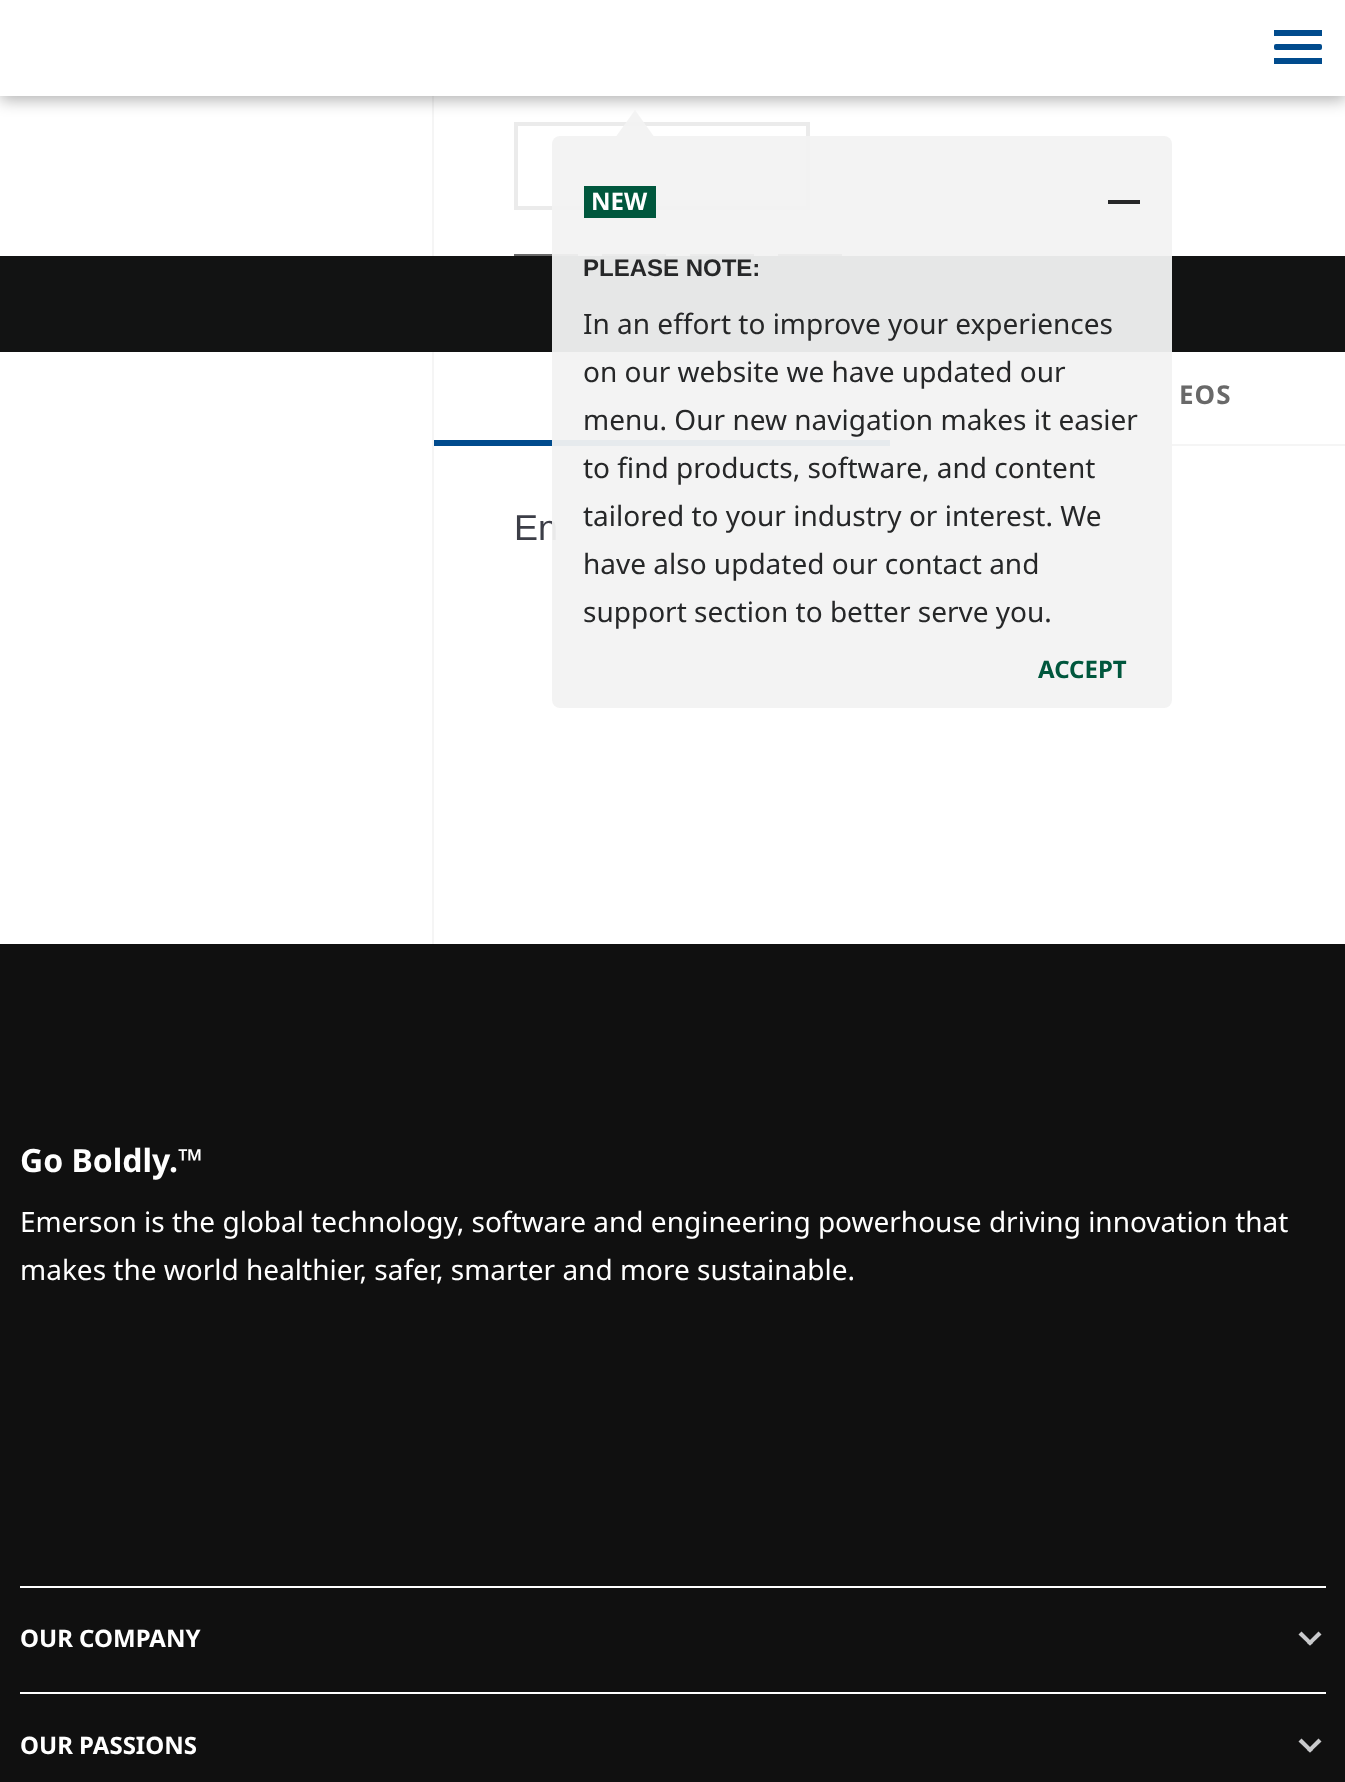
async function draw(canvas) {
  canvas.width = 1345
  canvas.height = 1782
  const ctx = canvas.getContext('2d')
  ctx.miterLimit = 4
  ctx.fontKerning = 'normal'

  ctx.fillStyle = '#fff'
  ctx.fillRect(0, 0, 1345, 1782)
  ctx.fillStyle = '#f5f5f5'
  ctx.fillRect(432, 96, 2, 848)
  ctx.strokeStyle = '#ebebeb'
  ctx.lineWidth = 4
  ctx.strokeRect(516, 124, 292, 84)
  ctx.fillStyle = '#0000004d'
  ctx.filter = 'blur(8px)'
  ctx.beginPath()
  ctx.rect(0, 4, 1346, 96)
  ctx.fill()
  ctx.filter = 'none'
  ctx.fillStyle = '#fff'
  ctx.fillRect(0, 0, 1345, 96)
  ctx.fillStyle = '#004b8d'
  ctx.beginPath()
  ctx.roundRect(1274, 44, 48, 6, 2)
  ctx.fill()
  ctx.fillRect(1274, 30, 48, 6)
  ctx.fillRect(1274, 58, 48, 6)
  ctx.fillStyle = '#121313'
  ctx.fillRect(0, 256, 1345, 96)
  ctx.fillStyle = '#696969'
  ctx.fillRect(514, 254, 64, 2)
  ctx.fillRect(602, 254, 64, 2)
  ctx.fillRect(690, 254, 64, 2)
  ctx.fillRect(778, 254, 64, 2)
  ctx.fillStyle = '#f5f5f5'
  ctx.fillRect(890, 444, 455, 2)
  ctx.fillStyle = '#004b8d'
  ctx.fillRect(434, 440, 456, 6)
  ctx.font = '36px Liberation Sans'
  ctx.fillStyle = '#3c3e47'
  ctx.fillText('En', 514, 540)
  ctx.fillStyle = '#f2f2f2f2'
  ctx.beginPath()
  ctx.roundRect(552, 136, 620, 572, 8)
  ctx.fill()
  ctx.beginPath()
  ctx.moveTo(616, 136.5)
  ctx.lineTo(616, 138)
  ctx.lineTo(655, 138)
  ctx.lineTo(635, 110)
  ctx.closePath()
  ctx.fill()
  ctx.fillStyle = '#00573d'
  ctx.fillRect(584, 186, 72, 32)
  ctx.font = 'bold 24px Noto Sans'
  ctx.fillStyle = '#fff'
  ctx.fillText('NEW', 591, 210)
  ctx.fillStyle = '#262728'
  ctx.fillRect(1108, 200, 32, 4)
  ctx.font = 'bold 24px Liberation Sans'
  ctx.fillText('PLEASE NOTE:', 583, 276)
  ctx.font = '28px Noto Sans'
  ctx.fillText('In an effort to improve your experiences', 583, 334)
  ctx.fillText('on our website we have updated our', 583, 382)
  ctx.fillText('menu. Our new navigation makes it easier', 583, 430)
  ctx.fillText('to find products, software, and content', 583, 478)
  ctx.fillText('tailored to your industry or interest. We', 583, 526)
  ctx.fillText('have also updated our contact and', 583, 574)
  ctx.fillText('support section to better serve you.', 583, 622)
  ctx.font = 'bold 24px Noto Sans'
  ctx.fillStyle = '#00573d'
  ctx.fillText('ACCEPT', 1038, 678)
  ctx.letterSpacing = '1px'
  ctx.font = 'bold 26px Noto Sans'
  ctx.fillStyle = '#696969'
  ctx.fillText('EOS', 1179, 404)
  ctx.fillStyle = '#101010'
  ctx.fillRect(0, 944, 1345, 838)
  ctx.letterSpacing = '0px'
  ctx.font = 'bold 32px Noto Sans'
  ctx.fillStyle = '#fff'
  ctx.fillText('Go Boldly.™', 20, 1172)
  ctx.font = '28px Noto Sans'
  ctx.fillText('Emerson is the global technology, software and engineering powerhouse driving innovation that', 20, 1232)
  ctx.fillText('makes the world healthier, safer, smarter and more sustainable.', 20, 1280)
  ctx.fillRect(20, 1586, 1306, 2)
  ctx.fillRect(20, 1692, 1306, 2)
  ctx.font = 'bold 24px Noto Sans'
  ctx.fillText('OUR COMPANY', 20, 1647)
  ctx.fillStyle = '#c9cacc'
  ctx.beginPath()
  ctx.moveTo(1321.5, 1634.5)
  ctx.lineTo(1310, 1645.5)
  ctx.lineTo(1307, 1643)
  ctx.lineTo(1318.5, 1631.5)
  ctx.closePath()
  ctx.fill()
  ctx.beginPath()
  ctx.moveTo(1313, 1643)
  ctx.lineTo(1310, 1645.5)
  ctx.lineTo(1298.5, 1634.5)
  ctx.lineTo(1301.5, 1631.5)
  ctx.closePath()
  ctx.fill()
  ctx.fillStyle = '#fff'
  ctx.fillText('OUR PASSIONS', 20, 1754)
  ctx.fillStyle = '#c9cacc'
  ctx.beginPath()
  ctx.moveTo(1321.5, 1741.5)
  ctx.lineTo(1310, 1752.5)
  ctx.lineTo(1307, 1750)
  ctx.lineTo(1318.5, 1738.5)
  ctx.closePath()
  ctx.fill()
  ctx.beginPath()
  ctx.moveTo(1313, 1750)
  ctx.lineTo(1310, 1752.5)
  ctx.lineTo(1298.5, 1741.5)
  ctx.lineTo(1301.5, 1738.5)
  ctx.closePath()
  ctx.fill()
}

draw(document.querySelector('canvas'))
